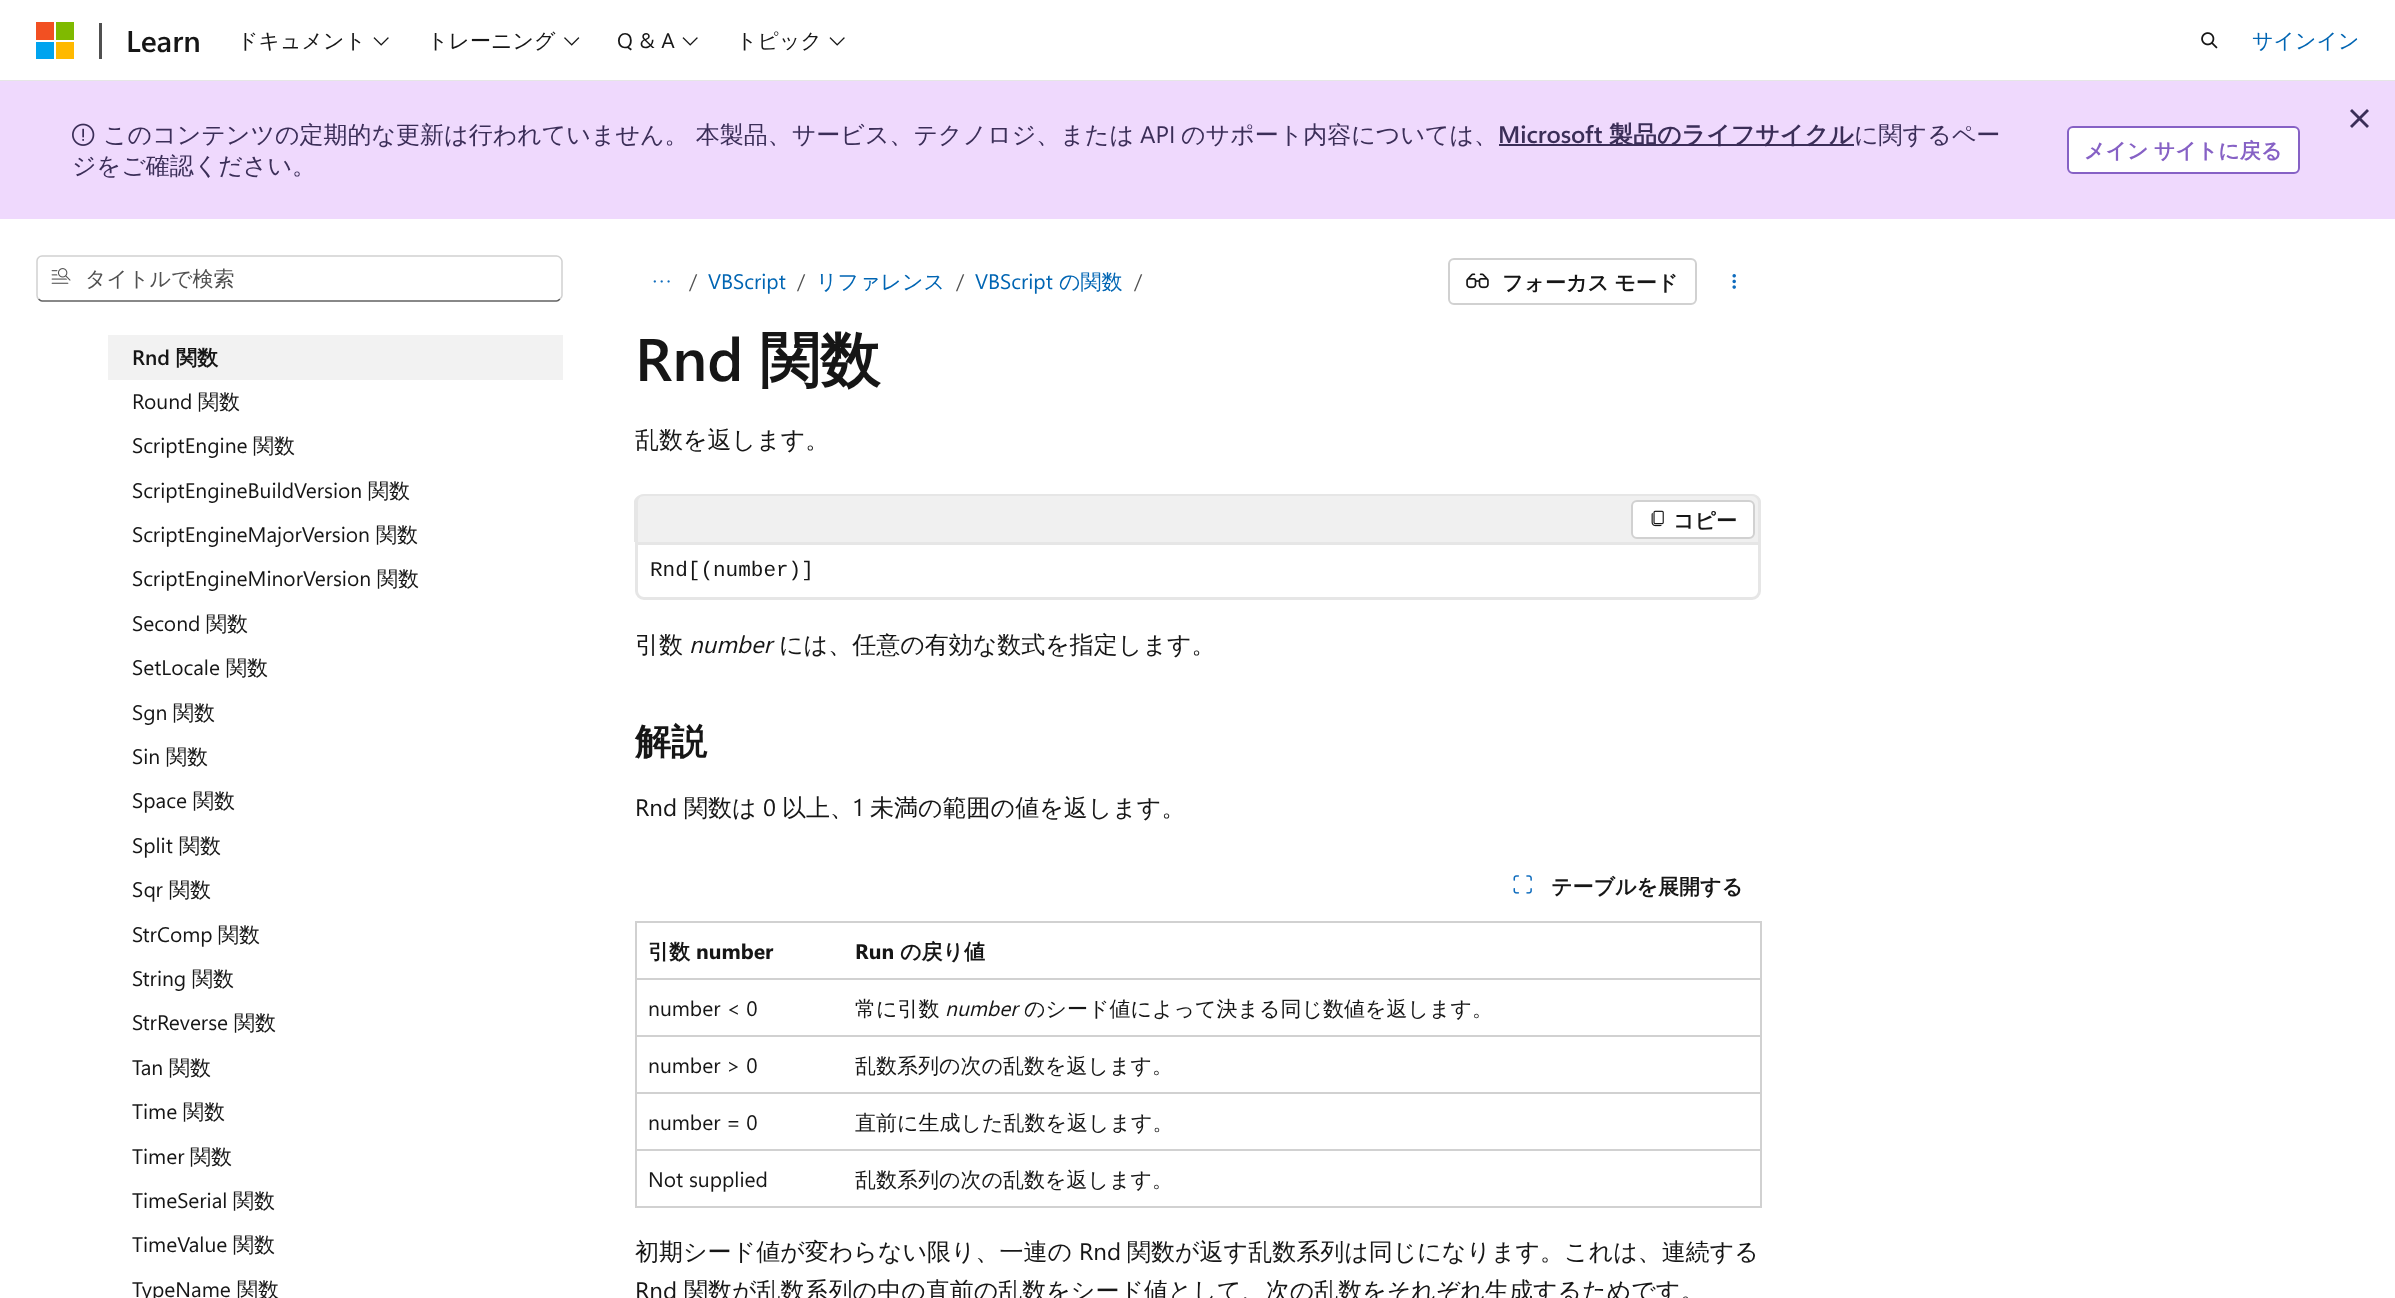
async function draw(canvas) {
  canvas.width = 2395
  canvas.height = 1298
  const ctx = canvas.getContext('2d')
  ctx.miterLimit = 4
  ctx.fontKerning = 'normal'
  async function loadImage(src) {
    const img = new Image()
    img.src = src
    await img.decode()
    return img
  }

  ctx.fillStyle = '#fff'
  ctx.fillRect(0, 0, 2395, 1298)
  ctx.fillStyle = '#e6e6e6'
  ctx.fillRect(0, 80, 2395, 1)
  ctx.fillStyle = '#f25022'
  ctx.fillRect(36, 22, 18, 18)
  ctx.fillStyle = '#7fba00'
  ctx.fillRect(56, 22, 18, 18)
  ctx.fillStyle = '#00a4ef'
  ctx.fillRect(36, 42, 18, 17)
  ctx.fillStyle = '#ffb900'
  ctx.fillRect(56, 42, 18, 17)
  ctx.fillStyle = '#505050'
  ctx.fillRect(99, 23, 3, 36)
  ctx.font = '600 30px Segoe UI'
  ctx.fillStyle = '#161616'
  ctx.fillText('Learn', 126, 52)
  ctx.font = '500 21px WenQuanYi Zen Hei'
  ctx.fillText('ドキュメント', 237, 48)
  ctx.drawImage(await loadImage('image0.png'), 373, 37, 16, 9)
  ctx.fillText('トレーニング', 427, 48)
  ctx.drawImage(await loadImage('image1.png'), 564, 37, 16, 9)
  ctx.font = '21px Segoe UI'
  ctx.fillText('Q & A', 617, 48)
  ctx.drawImage(await loadImage('image0.png'), 682, 37, 16, 9)
  ctx.font = '500 21px WenQuanYi Zen Hei'
  ctx.fillText('トピック', 736, 48)
  ctx.drawImage(await loadImage('image0.png'), 829, 37, 16, 9)
  ctx.drawImage(await loadImage('image2.png'), 2201, 32, 17, 17)
  ctx.fillStyle = '#0065b3'
  ctx.fillText('サインイン', 2252, 48)
  ctx.fillStyle = '#efd9fd'
  ctx.fillRect(0, 81, 2395, 138)
  ctx.fillStyle = '#3b2e58'
  ctx.beginPath()
  ctx.moveTo(2352, 109)
  ctx.lineTo(2369, 126)
  ctx.lineTo(2367, 128)
  ctx.lineTo(2350, 111)
  ctx.closePath()
  ctx.fill()
  ctx.beginPath()
  ctx.moveTo(2367, 109)
  ctx.lineTo(2369, 111)
  ctx.lineTo(2352, 128)
  ctx.lineTo(2350, 126)
  ctx.closePath()
  ctx.fill()
  ctx.drawImage(await loadImage('image3.png'), 72, 123, 23, 23)
  ctx.font = '500 24px WenQuanYi Zen Hei'
  ctx.fillText('このコンテンツの定期的な更新は行われていません。 本製品、サービス、テクノロジ、または', 103, 143)
  ctx.font = '24px Segoe UI'
  ctx.fillText('API', 1140, 143)
  ctx.font = '500 24px WenQuanYi Zen Hei'
  ctx.fillText('のサポート内容については、', 1181, 143)
  ctx.font = '600 24px Segoe UI'
  ctx.fillText('Microsoft', 1498, 143)
  ctx.fillRect(1499, 144, 355, 2)
  ctx.font = 'bold 24px WenQuanYi Zen Hei'
  ctx.fillText('製品のライフサイクル', 1609, 143)
  ctx.font = '500 24px WenQuanYi Zen Hei'
  ctx.fillText('に関するペー', 1854, 143)
  ctx.fillText('ジをご確認ください。', 72, 174)
  ctx.fillStyle = '#fff'
  ctx.beginPath()
  ctx.roundRect(2068, 127, 231, 46, 5)
  ctx.fill()
  ctx.strokeStyle = '#8661c5'
  ctx.lineWidth = 2
  ctx.stroke()
  ctx.wordSpacing = '-1px'
  ctx.font = 'bold 21px WenQuanYi Zen Hei'
  ctx.fillStyle = '#8661c5'
  ctx.fillText('メイン サイトに戻る', 2084, 158)
  ctx.beginPath()
  ctx.moveTo(560, 299)
  ctx.bezierCurveTo(559, 300, 558, 301, 556.5, 301)
  ctx.lineTo(42, 301)
  ctx.bezierCurveTo(40.5, 301, 39.5, 300, 38.5, 299)
  ctx.strokeStyle = '#616161'
  ctx.lineWidth = 1.5
  ctx.stroke()
  ctx.beginPath()
  ctx.moveTo(38.5, 299)
  ctx.bezierCurveTo(37.5, 298, 37, 297, 37, 295.5)
  ctx.lineTo(37, 261)
  ctx.bezierCurveTo(37, 259.5, 37.5, 258.5, 38.5, 257.5)
  ctx.bezierCurveTo(39.5, 256.5, 40.5, 256, 42, 256)
  ctx.lineTo(556.5, 256)
  ctx.bezierCurveTo(558, 256, 559, 256.5, 560, 257.5)
  ctx.bezierCurveTo(561, 258.5, 562, 259.5, 562, 261)
  ctx.lineTo(562, 295.5)
  ctx.bezierCurveTo(562, 297, 561, 298, 560, 299)
  ctx.strokeStyle = '#d1d1d1'
  ctx.stroke()
  ctx.drawImage(await loadImage('image4.png'), 51, 268, 20, 16)
  ctx.wordSpacing = '0px'
  ctx.font = '500 21px WenQuanYi Zen Hei'
  ctx.fillStyle = '#505050'
  ctx.fillText('タイトルで検索', 85, 286)
  ctx.fillStyle = '#f2f2f2'
  ctx.fillRect(108, 335, 455, 45)
  ctx.font = '600 21px Segoe UI'
  ctx.fillStyle = '#161616'
  ctx.fillText('Rnd', 132, 365)
  ctx.font = 'bold 21px WenQuanYi Zen Hei'
  ctx.fillText('関数', 176, 365)
  ctx.font = '21px Segoe UI'
  ctx.fillText('Round', 132, 409)
  ctx.font = '500 21px WenQuanYi Zen Hei'
  ctx.fillText('関数', 198, 409)
  ctx.font = '21px Segoe UI'
  ctx.fillText('ScriptEngine', 132, 453)
  ctx.font = '500 21px WenQuanYi Zen Hei'
  ctx.fillText('関数', 253, 453)
  ctx.font = '21px Segoe UI'
  ctx.fillText('ScriptEngineBuildVersion', 132, 498)
  ctx.font = '500 21px WenQuanYi Zen Hei'
  ctx.fillText('関数', 368, 498)
  ctx.font = '21px Segoe UI'
  ctx.fillText('ScriptEngineMajorVersion', 132, 542)
  ctx.font = '500 21px WenQuanYi Zen Hei'
  ctx.fillText('関数', 376, 542)
  ctx.font = '21px Segoe UI'
  ctx.fillText('ScriptEngineMinorVersion', 132, 586)
  ctx.font = '500 21px WenQuanYi Zen Hei'
  ctx.fillText('関数', 377, 586)
  ctx.font = '21px Segoe UI'
  ctx.fillText('Second', 132, 631)
  ctx.font = '500 21px WenQuanYi Zen Hei'
  ctx.fillText('関数', 206, 631)
  ctx.font = '21px Segoe UI'
  ctx.fillText('SetLocale', 132, 675)
  ctx.font = '500 21px WenQuanYi Zen Hei'
  ctx.fillText('関数', 226, 675)
  ctx.font = '21px Segoe UI'
  ctx.fillText('Sgn', 132, 720)
  ctx.font = '500 21px WenQuanYi Zen Hei'
  ctx.fillText('関数', 173, 720)
  ctx.font = '21px Segoe UI'
  ctx.fillText('Sin', 132, 764)
  ctx.font = '500 21px WenQuanYi Zen Hei'
  ctx.fillText('関数', 166, 764)
  ctx.font = '21px Segoe UI'
  ctx.fillText('Space', 132, 808)
  ctx.font = '500 21px WenQuanYi Zen Hei'
  ctx.fillText('関数', 193, 808)
  ctx.font = '21px Segoe UI'
  ctx.fillText('Split', 132, 853)
  ctx.font = '500 21px WenQuanYi Zen Hei'
  ctx.fillText('関数', 179, 853)
  ctx.font = '21px Segoe UI'
  ctx.fillText('Sqr', 132, 897)
  ctx.font = '500 21px WenQuanYi Zen Hei'
  ctx.fillText('関数', 169, 897)
  ctx.font = '21px Segoe UI'
  ctx.fillText('StrComp', 132, 942)
  ctx.font = '500 21px WenQuanYi Zen Hei'
  ctx.fillText('関数', 218, 942)
  ctx.font = '21px Segoe UI'
  ctx.fillText('String', 132, 986)
  ctx.font = '500 21px WenQuanYi Zen Hei'
  ctx.fillText('関数', 192, 986)
  ctx.font = '21px Segoe UI'
  ctx.fillText('StrReverse', 132, 1030)
  ctx.font = '500 21px WenQuanYi Zen Hei'
  ctx.fillText('関数', 234, 1030)
  ctx.font = '21px Segoe UI'
  ctx.fillText('Tan', 132, 1075)
  ctx.font = '500 21px WenQuanYi Zen Hei'
  ctx.fillText('関数', 169, 1075)
  ctx.font = '21px Segoe UI'
  ctx.fillText('Time', 132, 1119)
  ctx.font = '500 21px WenQuanYi Zen Hei'
  ctx.fillText('関数', 183, 1119)
  ctx.font = '21px Segoe UI'
  ctx.fillText('Timer', 132, 1164)
  ctx.font = '500 21px WenQuanYi Zen Hei'
  ctx.fillText('関数', 190, 1164)
  ctx.font = '21px Segoe UI'
  ctx.fillText('TimeSerial', 132, 1208)
  ctx.font = '500 21px WenQuanYi Zen Hei'
  ctx.fillText('関数', 233, 1208)
  ctx.font = '21px Segoe UI'
  ctx.fillText('TimeValue', 132, 1252)
  ctx.font = '500 21px WenQuanYi Zen Hei'
  ctx.fillText('関数', 233, 1252)
  ctx.font = '21px Segoe UI'
  ctx.fillText('TypeName', 132, 1297)
  ctx.font = '500 21px WenQuanYi Zen Hei'
  ctx.fillText('関数', 237, 1297)
  ctx.drawImage(await loadImage('image5.png'), 653, 280, 17, 3)
  ctx.font = '21px Segoe UI'
  ctx.fillStyle = '#505050'
  ctx.fillText('/', 689, 289)
  ctx.fillStyle = '#0065b3'
  ctx.fillText('VBScript', 708, 289)
  ctx.fillStyle = '#505050'
  ctx.fillText('/', 797, 289)
  ctx.font = '500 21px WenQuanYi Zen Hei'
  ctx.fillStyle = '#0065b3'
  ctx.fillText('リファレンス', 816, 289)
  ctx.font = '21px Segoe UI'
  ctx.fillStyle = '#505050'
  ctx.fillText('/', 956, 289)
  ctx.fillStyle = '#0065b3'
  ctx.fillText('VBScript', 975, 289)
  ctx.font = '500 21px WenQuanYi Zen Hei'
  ctx.fillText('の関数', 1059, 289)
  ctx.font = '21px Segoe UI'
  ctx.fillStyle = '#505050'
  ctx.fillText('/', 1134, 289)
  ctx.beginPath()
  ctx.roundRect(1449, 259, 247, 45, 5)
  ctx.lineWidth = 2
  ctx.stroke()
  ctx.drawImage(await loadImage('image6.png'), 1466, 273, 23, 16)
  ctx.wordSpacing = '-1px'
  ctx.font = 'bold 21px WenQuanYi Zen Hei'
  ctx.fillStyle = '#161616'
  ctx.fillText('フォーカス モード', 1502, 290)
  ctx.drawImage(await loadImage('image7.png'), 1732, 274, 4, 15)
  ctx.wordSpacing = '0px'
  ctx.font = '600 60px Segoe UI'
  ctx.fillText('Rnd', 635, 381)
  ctx.font = 'bold 60px WenQuanYi Zen Hei'
  ctx.fillText('関数', 760, 381)
  ctx.font = '500 24px WenQuanYi Zen Hei'
  ctx.fillText('乱数を返します。', 635, 448)
  ctx.fillStyle = '#f0f0f0'
  ctx.beginPath()
  ctx.roundRect(635, 494, 1126, 48, [9, 9, 0, 0])
  ctx.fill()
  ctx.fillStyle = '#e6e6e6'
  ctx.beginPath()
  ctx.moveTo(644, 494)
  ctx.lineTo(1752, 494)
  ctx.bezierCurveTo(1757, 494, 1761, 498, 1761, 502)
  ctx.lineTo(1761, 542)
  ctx.lineTo(634, 542)
  ctx.lineTo(634, 502)
  ctx.bezierCurveTo(634, 498, 639, 494, 644, 494)
  ctx.closePath()
  ctx.moveTo(644, 496)
  ctx.lineTo(1752, 496)
  ctx.bezierCurveTo(1755, 496, 1758, 499, 1758, 502)
  ctx.lineTo(1758, 542)
  ctx.lineTo(638, 542)
  ctx.lineTo(638, 502)
  ctx.bezierCurveTo(638, 499, 640, 496, 644, 496)
  ctx.closePath()
  ctx.fill('evenodd')
  ctx.fillStyle = '#fff'
  ctx.beginPath()
  ctx.roundRect(1632, 501, 122, 37, 5)
  ctx.fill()
  ctx.stroke()
  ctx.drawImage(await loadImage('image8.png'), 1651, 510, 13, 17)
  ctx.font = 'bold 21px WenQuanYi Zen Hei'
  ctx.fillStyle = '#161616'
  ctx.fillText('コピー', 1673, 528)
  ctx.beginPath()
  ctx.roundRect(636.5, 543.5, 1123, 55, [0, 0, 7.5, 7.5])
  ctx.strokeStyle = '#e6e6e6'
  ctx.lineWidth = 3
  ctx.stroke()
  ctx.font = '21px Liberation Mono'
  ctx.fillText('Rnd[(number)]', 650, 576)
  ctx.font = '500 24px WenQuanYi Zen Hei'
  ctx.fillText('引数', 635, 653)
  ctx.font = 'italic 24px Segoe UI'
  ctx.fillText('number', 689, 653)
  ctx.font = '500 24px WenQuanYi Zen Hei'
  ctx.fillText('には、任意の有効な数式を指定します。', 779, 653)
  ctx.font = 'bold 36px WenQuanYi Zen Hei'
  ctx.fillText('解説', 635, 754)
  ctx.font = '24px Segoe UI'
  ctx.fillText('Rnd', 635, 816)
  ctx.font = '500 24px WenQuanYi Zen Hei'
  ctx.fillText('関数は', 684, 816)
  ctx.font = '24px Segoe UI'
  ctx.fillText('0', 763, 816)
  ctx.font = '500 24px WenQuanYi Zen Hei'
  ctx.fillText('以上、', 782, 816)
  ctx.font = '24px Segoe UI'
  ctx.fillText('1', 854, 816)
  ctx.font = '500 24px WenQuanYi Zen Hei'
  ctx.fillText('未満の範囲の値を返します。', 870, 816)
  ctx.drawImage(await loadImage('image9.png'), 1513, 875, 19, 19)
  ctx.font = 'bold 21px WenQuanYi Zen Hei'
  ctx.fillText('テーブルを展開する', 1551, 894)
  ctx.fillStyle = '#d1d1d1'
  ctx.fillRect(635, 921, 1126, 2)
  ctx.fillRect(1760, 921, 2, 287)
  ctx.fillRect(635, 1206, 1126, 2)
  ctx.fillRect(635, 921, 2, 287)
  ctx.fillStyle = '#161616'
  ctx.fillText('引数', 648, 959)
  ctx.font = 'bold 21px Segoe UI'
  ctx.fillText('number', 696, 959)
  ctx.fillText('Run', 855, 959)
  ctx.font = 'bold 21px WenQuanYi Zen Hei'
  ctx.fillText('の戻り値', 900, 959)
  ctx.font = '21px Segoe UI'
  ctx.fillText('number < 0', 648, 1016)
  ctx.fillStyle = '#d1d1d1'
  ctx.fillRect(635, 978, 1126, 2)
  ctx.font = '500 21px WenQuanYi Zen Hei'
  ctx.fillStyle = '#161616'
  ctx.fillText('常に引数', 855, 1016)
  ctx.font = 'italic 21px Segoe UI'
  ctx.fillText('number', 945, 1016)
  ctx.font = '500 21px WenQuanYi Zen Hei'
  ctx.fillText('のシード値によって決まる同じ数値を返します。', 1024, 1016)
  ctx.font = '21px Segoe UI'
  ctx.fillText('number > 0', 648, 1073)
  ctx.fillStyle = '#d1d1d1'
  ctx.fillRect(635, 1035, 1126, 2)
  ctx.font = '500 21px WenQuanYi Zen Hei'
  ctx.fillStyle = '#161616'
  ctx.fillText('乱数系列の次の乱数を返します。', 855, 1073)
  ctx.font = '21px Segoe UI'
  ctx.fillText('number = 0', 648, 1130)
  ctx.fillStyle = '#d1d1d1'
  ctx.fillRect(635, 1092, 1126, 2)
  ctx.font = '500 21px WenQuanYi Zen Hei'
  ctx.fillStyle = '#161616'
  ctx.fillText('直前に生成した乱数を返します。', 855, 1130)
  ctx.font = '21px Segoe UI'
  ctx.fillText('Not supplied', 648, 1187)
  ctx.fillStyle = '#d1d1d1'
  ctx.fillRect(635, 1149, 1126, 2)
  ctx.font = '500 21px WenQuanYi Zen Hei'
  ctx.fillStyle = '#161616'
  ctx.fillText('乱数系列の次の乱数を返します。', 855, 1187)
  ctx.font = '500 24px WenQuanYi Zen Hei'
  ctx.fillText('初期シード値が変わらない限り、一連の', 635, 1260)
  ctx.font = '24px Segoe UI'
  ctx.fillText('Rnd', 1079, 1260)
  ctx.font = '500 24px WenQuanYi Zen Hei'
  ctx.fillText('関数が返す乱数系列は同じになります。これは、連続する', 1127, 1260)
  ctx.font = '24px Segoe UI'
  ctx.fillText('Rnd', 635, 1299)
  ctx.font = '500 24px WenQuanYi Zen Hei'
  ctx.fillText('関数が乱数系列の中の直前の乱数をシード値として、次の乱数をそれぞれ生成するためです。', 684, 1299)
}

draw(document.querySelector('canvas'))
